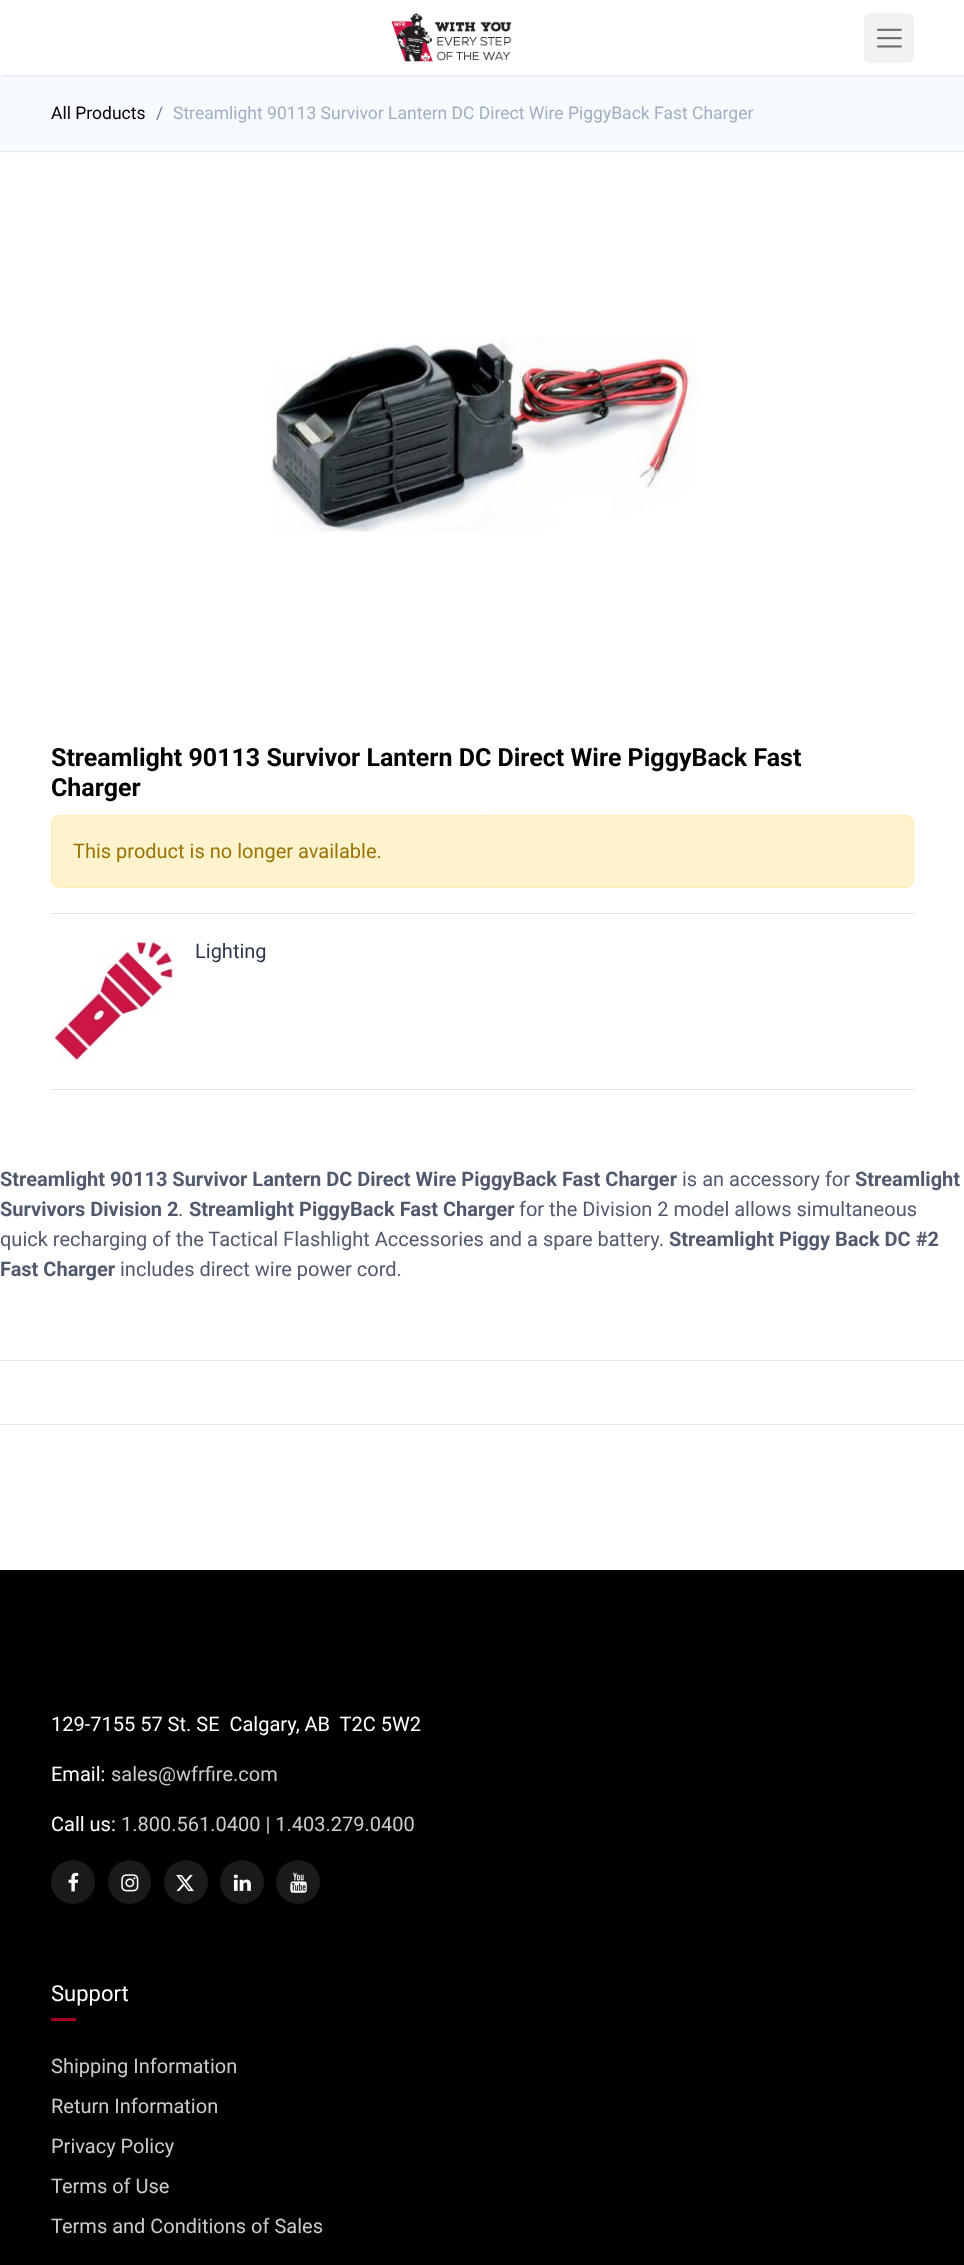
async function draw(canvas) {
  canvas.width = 964
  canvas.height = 2265
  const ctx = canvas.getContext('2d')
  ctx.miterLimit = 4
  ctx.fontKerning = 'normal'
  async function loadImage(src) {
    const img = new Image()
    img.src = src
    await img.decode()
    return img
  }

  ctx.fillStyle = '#fff'
  ctx.fillRect(0, 0, 964, 2265)
  ctx.fillStyle = '#f7faff'
  ctx.fillRect(0, 75, 964, 78)
  ctx.save()
  ctx.beginPath()
  ctx.rect(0, 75, 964, 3)
  ctx.clip()
  ctx.fillStyle = '#0000001a'
  ctx.filter = 'blur(2px)'
  ctx.beginPath()
  ctx.rect(0, 1, 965, 75)
  ctx.fill()
  ctx.filter = 'none'
  ctx.restore()
  ctx.drawImage(await loadImage('image0.png'), 391, 13, 121, 49)
  ctx.fillStyle = '#f2f2f2'
  ctx.beginPath()
  ctx.roundRect(864, 13, 50, 50, 6)
  ctx.fill()
  ctx.drawImage(await loadImage('image1.png'), 876, 28, 26, 20)
  ctx.fillStyle = '#e2e8f0'
  ctx.fillRect(0, 151, 964, 1)
  ctx.font = '17.5px Roboto'
  ctx.fillStyle = '#000'
  ctx.fillText('All Products', 51, 119)
  ctx.fillStyle = '#718096'
  ctx.fillText('/', 156, 119)
  ctx.fillStyle = '#a0aec0'
  ctx.fillText('Streamlight 90113 Survivor Lantern DC Direct Wire PiggyBack Fast Charger', 173, 119)
  ctx.drawImage(await loadImage('image2.png'), 270, 337, 430, 195)
  ctx.font = 'bold 25px Roboto'
  ctx.fillStyle = '#000'
  ctx.fillText('Streamlight 90113 Survivor Lantern DC Direct Wire PiggyBack Fast', 51, 766)
  ctx.fillText('Charger', 51, 796)
  ctx.fillStyle = '#fff3cd'
  ctx.beginPath()
  ctx.roundRect(51.5, 815.5, 862, 72, 7.5)
  ctx.fill()
  ctx.strokeStyle = '#ffecb5'
  ctx.stroke()
  ctx.font = '20px Roboto'
  ctx.fillStyle = '#997404'
  ctx.fillText('This product is no longer available.', 73, 858)
  ctx.fillStyle = '#e2e8f0'
  ctx.fillRect(51, 913, 863, 1)
  ctx.drawImage(await loadImage('image3.png'), 51, 939, 125, 124)
  ctx.fillStyle = '#2d374b'
  ctx.fillText('Lighting', 195, 958)
  ctx.fillStyle = '#e2e8f0'
  ctx.fillRect(51, 1089, 863, 1)
  ctx.font = 'bold 20px Roboto'
  ctx.fillStyle = '#51596c'
  ctx.fillText('Streamlight 90113 Survivor Lantern DC Direct Wire PiggyBack Fast Charger', 0, 1186)
  ctx.font = '20px Roboto'
  ctx.fillText('is an accessory for', 682, 1186)
  ctx.font = 'bold 20px Roboto'
  ctx.fillText('Streamlight', 855, 1186)
  ctx.fillText('Survivors Division 2', 0, 1216)
  ctx.font = '20px Roboto'
  ctx.fillText('.', 178, 1216)
  ctx.font = 'bold 20px Roboto'
  ctx.fillText('Streamlight PiggyBack Fast Charger', 189, 1216)
  ctx.font = '20px Roboto'
  ctx.fillText('for the Division 2 model allows simultaneous', 519, 1216)
  ctx.fillText('quick recharging of the Tactical Flashlight Accessories and a spare battery.', 0, 1246)
  ctx.font = 'bold 20px Roboto'
  ctx.fillText('Streamlight Piggy Back DC #2', 669, 1246)
  ctx.fillText('Fast Charger', 0, 1276)
  ctx.font = '20px Roboto'
  ctx.fillText('includes direct wire power cord.', 120, 1276)
  ctx.fillStyle = '#e2e8f0'
  ctx.fillRect(0, 1360, 964, 1)
  ctx.fillRect(0, 1424, 964, 1)
  ctx.fillStyle = '#000'
  ctx.fillRect(0, 1570, 964, 695)
  ctx.fillStyle = '#fff'
  ctx.fillText('129-7155 57 St. SE  Calgary, AB  T2C 5W2', 51, 1731)
  ctx.fillText('Email:', 51, 1781)
  ctx.fillStyle = '#ccc'
  ctx.fillText('sales@wfrfire.com', 111, 1781)
  ctx.fillStyle = '#fff'
  ctx.fillText('Call us:', 51, 1831)
  ctx.fillStyle = '#ccc'
  ctx.fillText('1.800.561.0400 | 1.403.279.0400', 121, 1831)
  ctx.fillStyle = '#1a1a1a'
  ctx.beginPath()
  ctx.arc(73, 1882, 22, 0, 2 * Math.PI)
  ctx.fill()
  ctx.drawImage(await loadImage('image4.png'), 68, 1872, 11, 20)
  ctx.beginPath()
  ctx.roundRect(108, 1860, 43, 44, 21.5)
  ctx.fill()
  ctx.drawImage(await loadImage('image5.png'), 121, 1874, 18, 18)
  ctx.beginPath()
  ctx.arc(186, 1882, 22, 0, 2 * Math.PI)
  ctx.fill()
  ctx.drawImage(await loadImage('image6.png'), 176, 1874, 18, 18)
  ctx.beginPath()
  ctx.arc(242, 1882, 22, 0, 2 * Math.PI)
  ctx.fill()
  ctx.drawImage(await loadImage('image7.png'), 233, 1874, 18, 17)
  ctx.beginPath()
  ctx.arc(298, 1882, 22, 0, 2 * Math.PI)
  ctx.fill()
  ctx.drawImage(await loadImage('image8.png'), 290, 1872, 17, 21)
  ctx.font = '22px Roboto'
  ctx.fillStyle = '#fff'
  ctx.fillText('Support', 51, 2001)
  ctx.fillStyle = '#a2001f'
  ctx.fillRect(51, 2018, 25, 3)
  ctx.font = '20px Roboto'
  ctx.fillStyle = '#ccc'
  ctx.fillText('Shipping Information', 51, 2073)
  ctx.fillText('Return Information', 51, 2113)
  ctx.fillText('Privacy Policy', 51, 2153)
  ctx.fillText('Terms of Use', 51, 2193)
  ctx.fillText('Terms and Conditions of Sales', 51, 2233)
}

draw(document.querySelector('canvas'))
